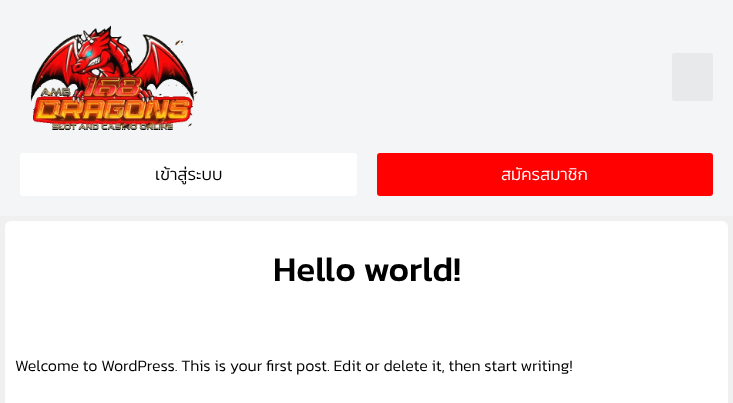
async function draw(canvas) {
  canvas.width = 733
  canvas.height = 403
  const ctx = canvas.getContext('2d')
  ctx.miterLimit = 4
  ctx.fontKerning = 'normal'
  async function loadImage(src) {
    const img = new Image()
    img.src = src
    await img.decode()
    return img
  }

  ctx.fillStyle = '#f3f5f6'
  ctx.fillRect(0, 0, 733, 403)
  ctx.drawImage(await loadImage('image0.png'), 30, 25, 168, 105)
  ctx.fillStyle = '#e7e9ea'
  ctx.beginPath()
  ctx.roundRect(672, 53, 41, 48, 3)
  ctx.fill()
  ctx.fillStyle = '#fff'
  ctx.beginPath()
  ctx.roundRect(20, 153, 337, 43, 3)
  ctx.fill()
  ctx.font = '300 17px Kanit'
  ctx.fillStyle = '#000'
  ctx.fillText('เข้าสู่ระบบ', 155, 180)
  ctx.fillStyle = '#ff0101'
  ctx.beginPath()
  ctx.roundRect(377, 153, 336, 43, 3)
  ctx.fill()
  ctx.fillStyle = '#fff'
  ctx.fillText('สมัครสมาชิก', 501, 180)
  ctx.fillStyle = '#f0f0f0'
  ctx.fillRect(0, 216, 733, 187)
  ctx.fillStyle = '#fff'
  ctx.beginPath()
  ctx.roundRect(5, 221, 723, 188, 6)
  ctx.fill()
  ctx.font = '500 35px Kanit'
  ctx.fillStyle = '#000'
  ctx.fillText('Hello world!', 273, 281)
  ctx.font = '300 16px Kanit'
  ctx.fillText('Welcome to WordPress. This is your first post. Edit or delete it, then start writing!', 15, 371)
}

draw(document.querySelector('canvas'))
